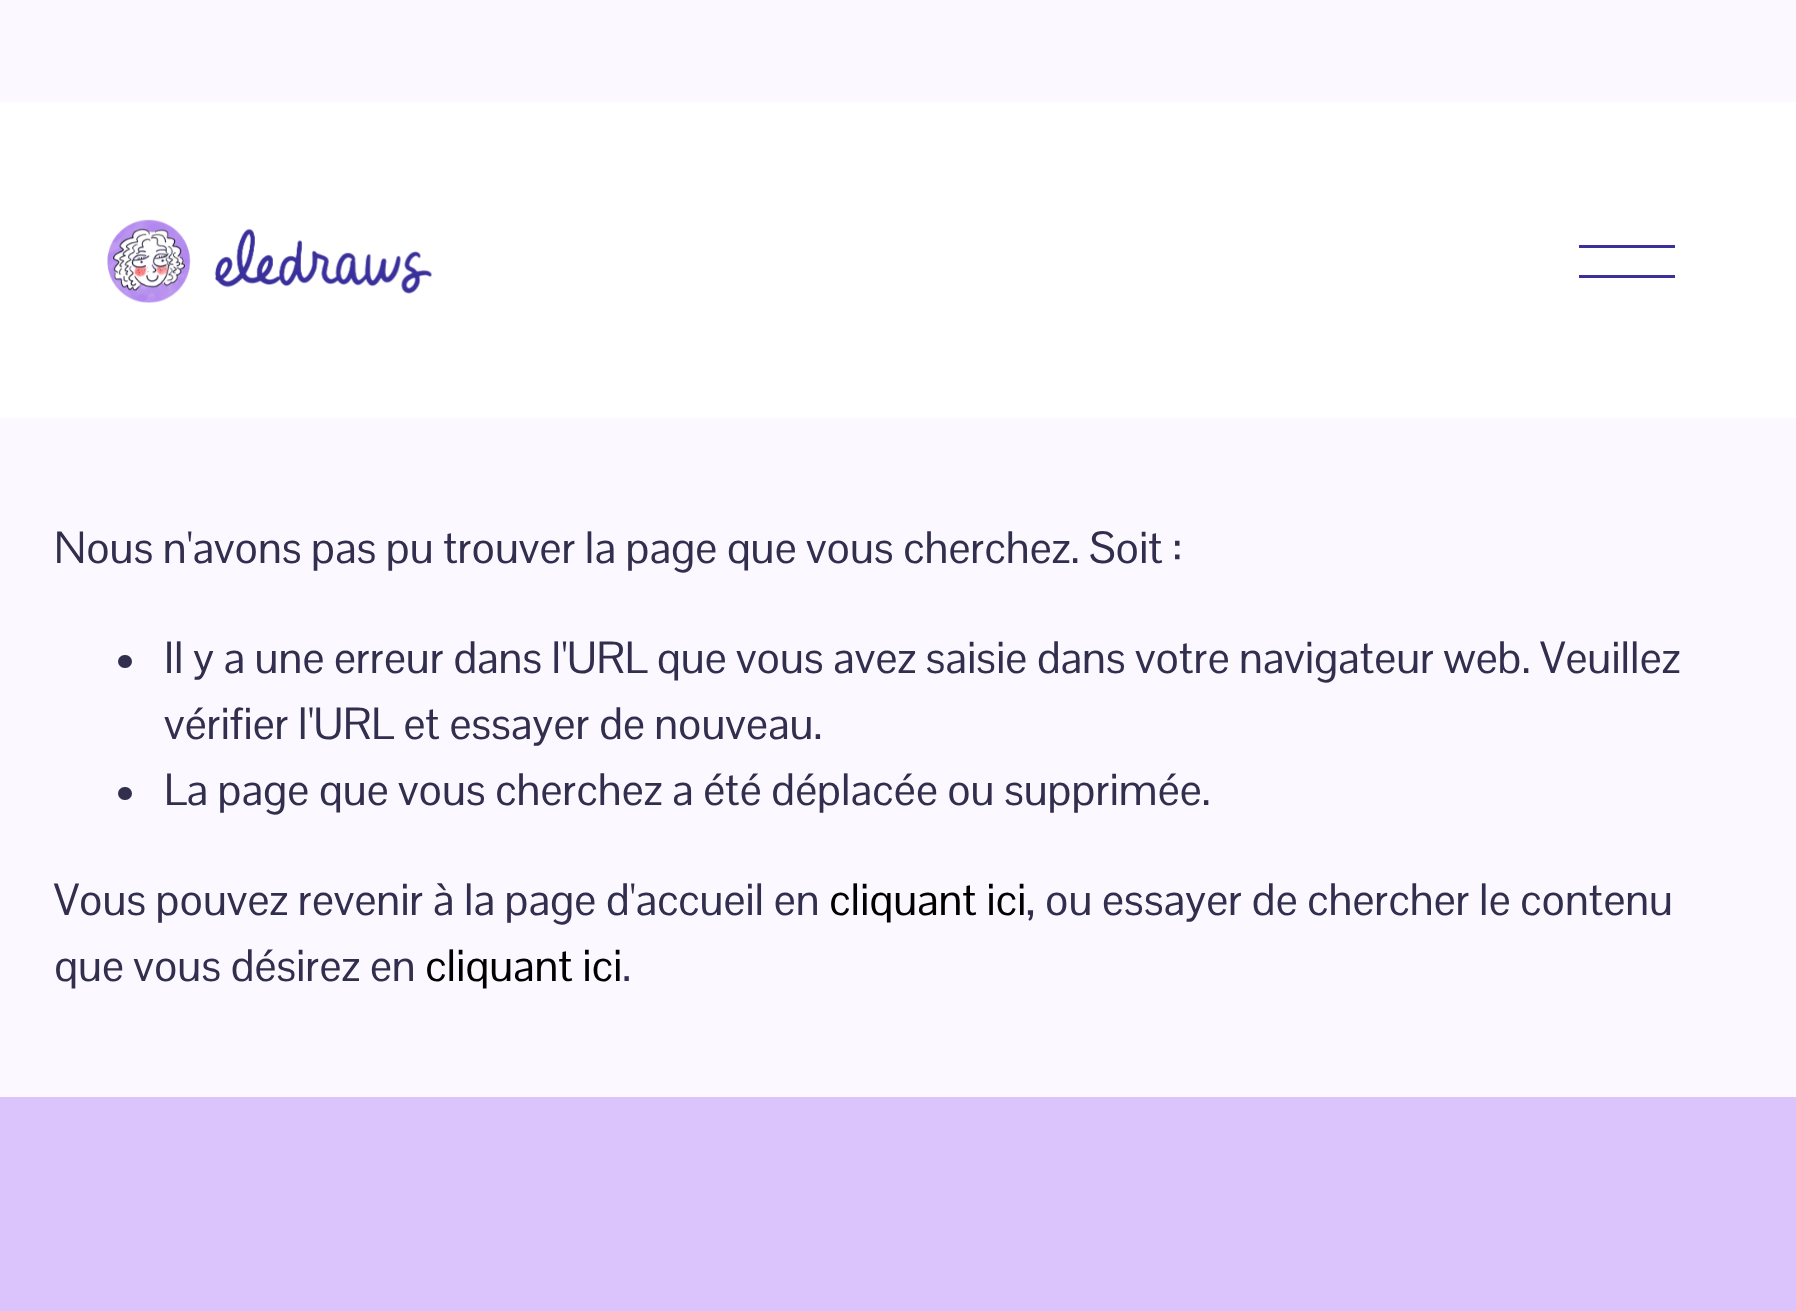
async function draw(canvas) {
  canvas.width = 1796
  canvas.height = 1311
  const ctx = canvas.getContext('2d')
  ctx.miterLimit = 4
  ctx.fontKerning = 'normal'
  async function loadImage(src) {
    const img = new Image()
    img.src = src
    await img.decode()
    return img
  }

  ctx.fillStyle = '#fbf8ff'
  ctx.fillRect(0, 0, 1796, 1311)
  ctx.fillStyle = '#fff'
  ctx.fillRect(0, 102, 1796, 316)
  ctx.drawImage(await loadImage('image0.png'), 107, 219, 326, 84)
  ctx.fillStyle = '#3a309b'
  ctx.fillRect(1579, 245, 96, 3)
  ctx.fillRect(1579, 275, 96, 3)
  ctx.font = '44px Pontano Sans'
  ctx.fillStyle = '#312e4e'
  ctx.fillText('Nous n\'avons pas pu trouver la page que vous cherchez. Soit :', 54, 563)
  ctx.beginPath()
  ctx.roundRect(118, 655, 14, 13, 6.5)
  ctx.fill()
  ctx.fillText('Il y a une erreur dans l\'URL que vous avez saisie dans votre navigateur web. Veuillez', 164, 673)
  ctx.fillText('vérifier l\'URL et essayer de nouveau.', 164, 739)
  ctx.beginPath()
  ctx.roundRect(118, 787, 14, 13, 6.5)
  ctx.fill()
  ctx.fillText('La page que vous cherchez a été déplacée ou supprimée.', 164, 805)
  ctx.fillText('Vous pouvez revenir à la page d\'accueil en', 54, 915)
  ctx.fillStyle = '#000'
  ctx.fillText('cliquant ici', 829, 915)
  ctx.fillStyle = '#312e4e'
  ctx.fillText(', ou essayer de chercher le contenu', 1026, 915)
  ctx.fillText('que vous désirez en', 54, 981)
  ctx.fillStyle = '#000'
  ctx.fillText('cliquant ici', 425, 981)
  ctx.fillStyle = '#312e4e'
  ctx.fillText('.', 622, 981)
  ctx.fillStyle = '#dbc4fc'
  ctx.fillRect(0, 1097, 1796, 214)
}

draw(document.querySelector('canvas'))
